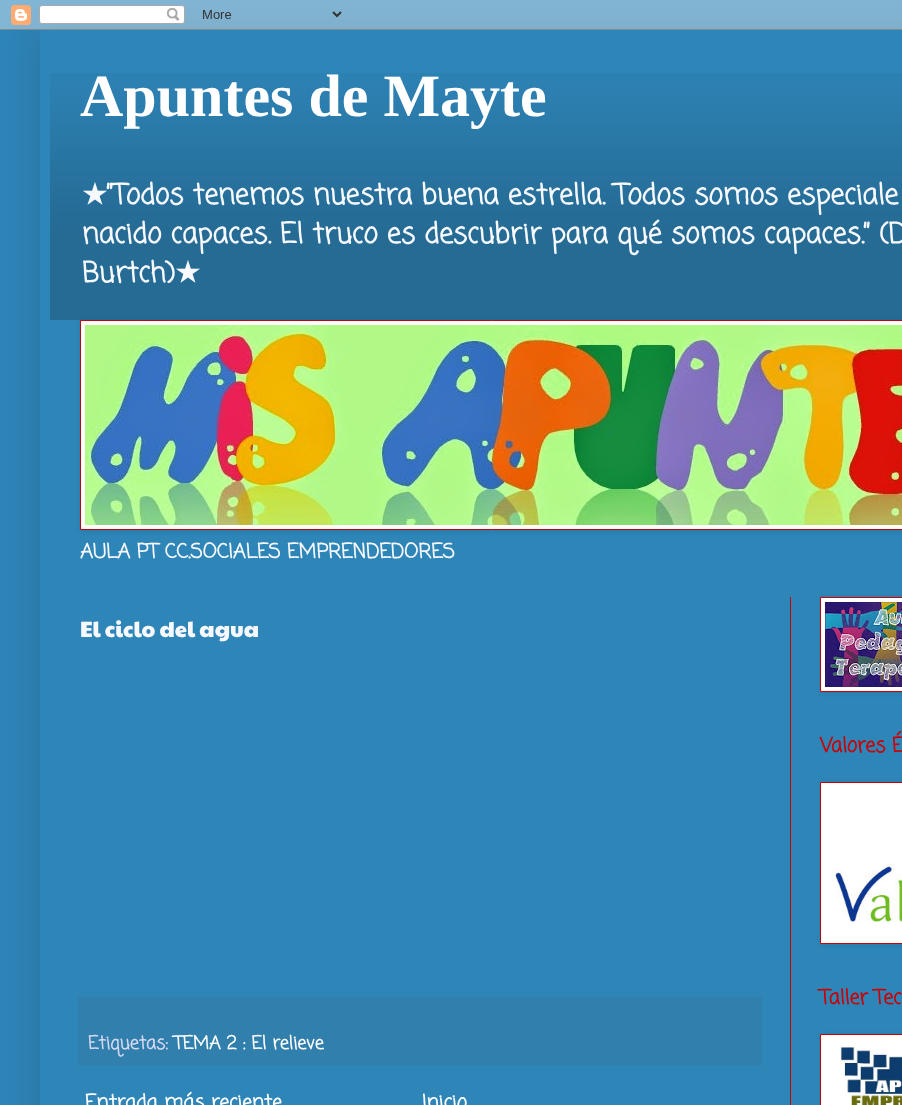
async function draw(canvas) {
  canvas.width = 902
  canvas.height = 1105
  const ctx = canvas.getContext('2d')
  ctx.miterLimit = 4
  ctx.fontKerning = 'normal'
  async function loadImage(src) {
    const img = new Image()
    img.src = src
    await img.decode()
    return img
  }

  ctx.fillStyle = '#2e85b8'
  ctx.fillRect(0, 0, 902, 1105)
  ctx.save()
  ctx.beginPath()
  ctx.moveTo(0, 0)
  ctx.lineTo(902, 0)
  ctx.lineTo(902, 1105)
  ctx.lineTo(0, 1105)
  ctx.closePath()
  ctx.moveTo(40, 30)
  ctx.lineTo(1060, 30)
  ctx.lineTo(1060, 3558)
  ctx.lineTo(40, 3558)
  ctx.closePath()
  ctx.clip('evenodd')
  ctx.fillStyle = '#00000026'
  ctx.filter = 'blur(20px)'
  ctx.beginPath()
  ctx.rect(40, 30, 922, 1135)
  ctx.fill()
  ctx.filter = 'none'
  ctx.restore()
  ctx.drawImage(await loadImage('image0.png'), 0, 0, 902, 30)
  ctx.drawImage(await loadImage('image1.png'), 50, 73, 852, 247)
  ctx.font = 'bold 60px Liberation Serif'
  ctx.fillStyle = '#fff'
  ctx.fillText('Apuntes de Mayte', 80, 116)
  ctx.font = 'bold 28px DejaVu Sans'
  ctx.fillStyle = '#f7f9ff'
  ctx.fillText('★', 82, 204)
  ctx.font = 'bold 28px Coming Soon'
  ctx.fillText('”Todos tenemos nuestra buena estrella. Todos somos especiale', 107, 204)
  ctx.fillText('nacido capaces. El truco es descubrir para qué somos capaces.” (D', 82, 243)
  ctx.fillText('Burtch)', 82, 282)
  ctx.font = 'bold 28px DejaVu Sans'
  ctx.fillText('★', 175, 282)
  ctx.fillStyle = '#0000001a'
  ctx.filter = 'blur(2.5px)'
  ctx.beginPath()
  ctx.rect(81, 321, 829, 210)
  ctx.fill()
  ctx.filter = 'none'
  ctx.fillStyle = '#fff'
  ctx.beginPath()
  ctx.rect(80.5, 320.5, 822, 209)
  ctx.fill()
  ctx.strokeStyle = '#c00'
  ctx.stroke()
  ctx.drawImage(await loadImage('image2.png'), 85, 325, 817, 200)
  ctx.font = 'bold 20px Coming Soon'
  ctx.fillStyle = '#f7f9ff'
  ctx.fillText('AULA PT CC.SOCIALES EMPRENDEDORES', 80, 558)
  ctx.fillStyle = '#c00'
  ctx.fillRect(790, 597, 1, 508)
  ctx.font = '22px Paytone One'
  ctx.fillStyle = '#f7f9ff'
  ctx.fillText('El ciclo del agua', 80, 637)
  ctx.fillStyle = '#317fac'
  ctx.fillRect(78, 997, 684, 68)
  ctx.font = 'bold 18px Coming Soon'
  ctx.fillStyle = '#d5d8f1'
  ctx.fillText('Etiquetas:', 88, 1049)
  ctx.fillStyle = '#fff'
  ctx.fillText('TEMA 2 : El relieve', 174, 1049)
  ctx.font = 'bold 20px Coming Soon'
  ctx.fillText('Entrada más reciente', 85, 1109)
  ctx.fillText('Inicio', 422, 1109)
  ctx.fillStyle = '#0000001a'
  ctx.filter = 'blur(2.5px)'
  ctx.beginPath()
  ctx.rect(821, 598, 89, 95)
  ctx.fill()
  ctx.filter = 'none'
  ctx.fillStyle = '#fff'
  ctx.beginPath()
  ctx.rect(820.5, 597.5, 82, 94)
  ctx.fill()
  ctx.stroke()
  ctx.drawImage(await loadImage('image3.png'), 825, 602, 77, 85)
  ctx.fillStyle = '#c00'
  ctx.fillText('Valores É', 820, 752)
  ctx.fillStyle = '#0000001a'
  ctx.filter = 'blur(2.5px)'
  ctx.beginPath()
  ctx.rect(821, 783, 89, 162)
  ctx.fill()
  ctx.filter = 'none'
  ctx.fillStyle = '#fff'
  ctx.beginPath()
  ctx.rect(820.5, 782.5, 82, 161)
  ctx.fill()
  ctx.stroke()
  ctx.drawImage(await loadImage('image4.png'), 831, 863, 71, 59)
  ctx.fillStyle = '#c00'
  ctx.fillText('Taller Tec', 820, 1004)
  ctx.fillStyle = '#0000001a'
  ctx.filter = 'blur(2.5px)'
  ctx.beginPath()
  ctx.rect(821, 1035, 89, 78)
  ctx.fill()
  ctx.filter = 'none'
  ctx.fillStyle = '#fff'
  ctx.beginPath()
  ctx.rect(820.5, 1034.5, 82, 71)
  ctx.fill()
  ctx.stroke()
  ctx.drawImage(await loadImage('image5.png'), 839, 1046, 63, 59)
}

draw(document.querySelector('canvas'))
